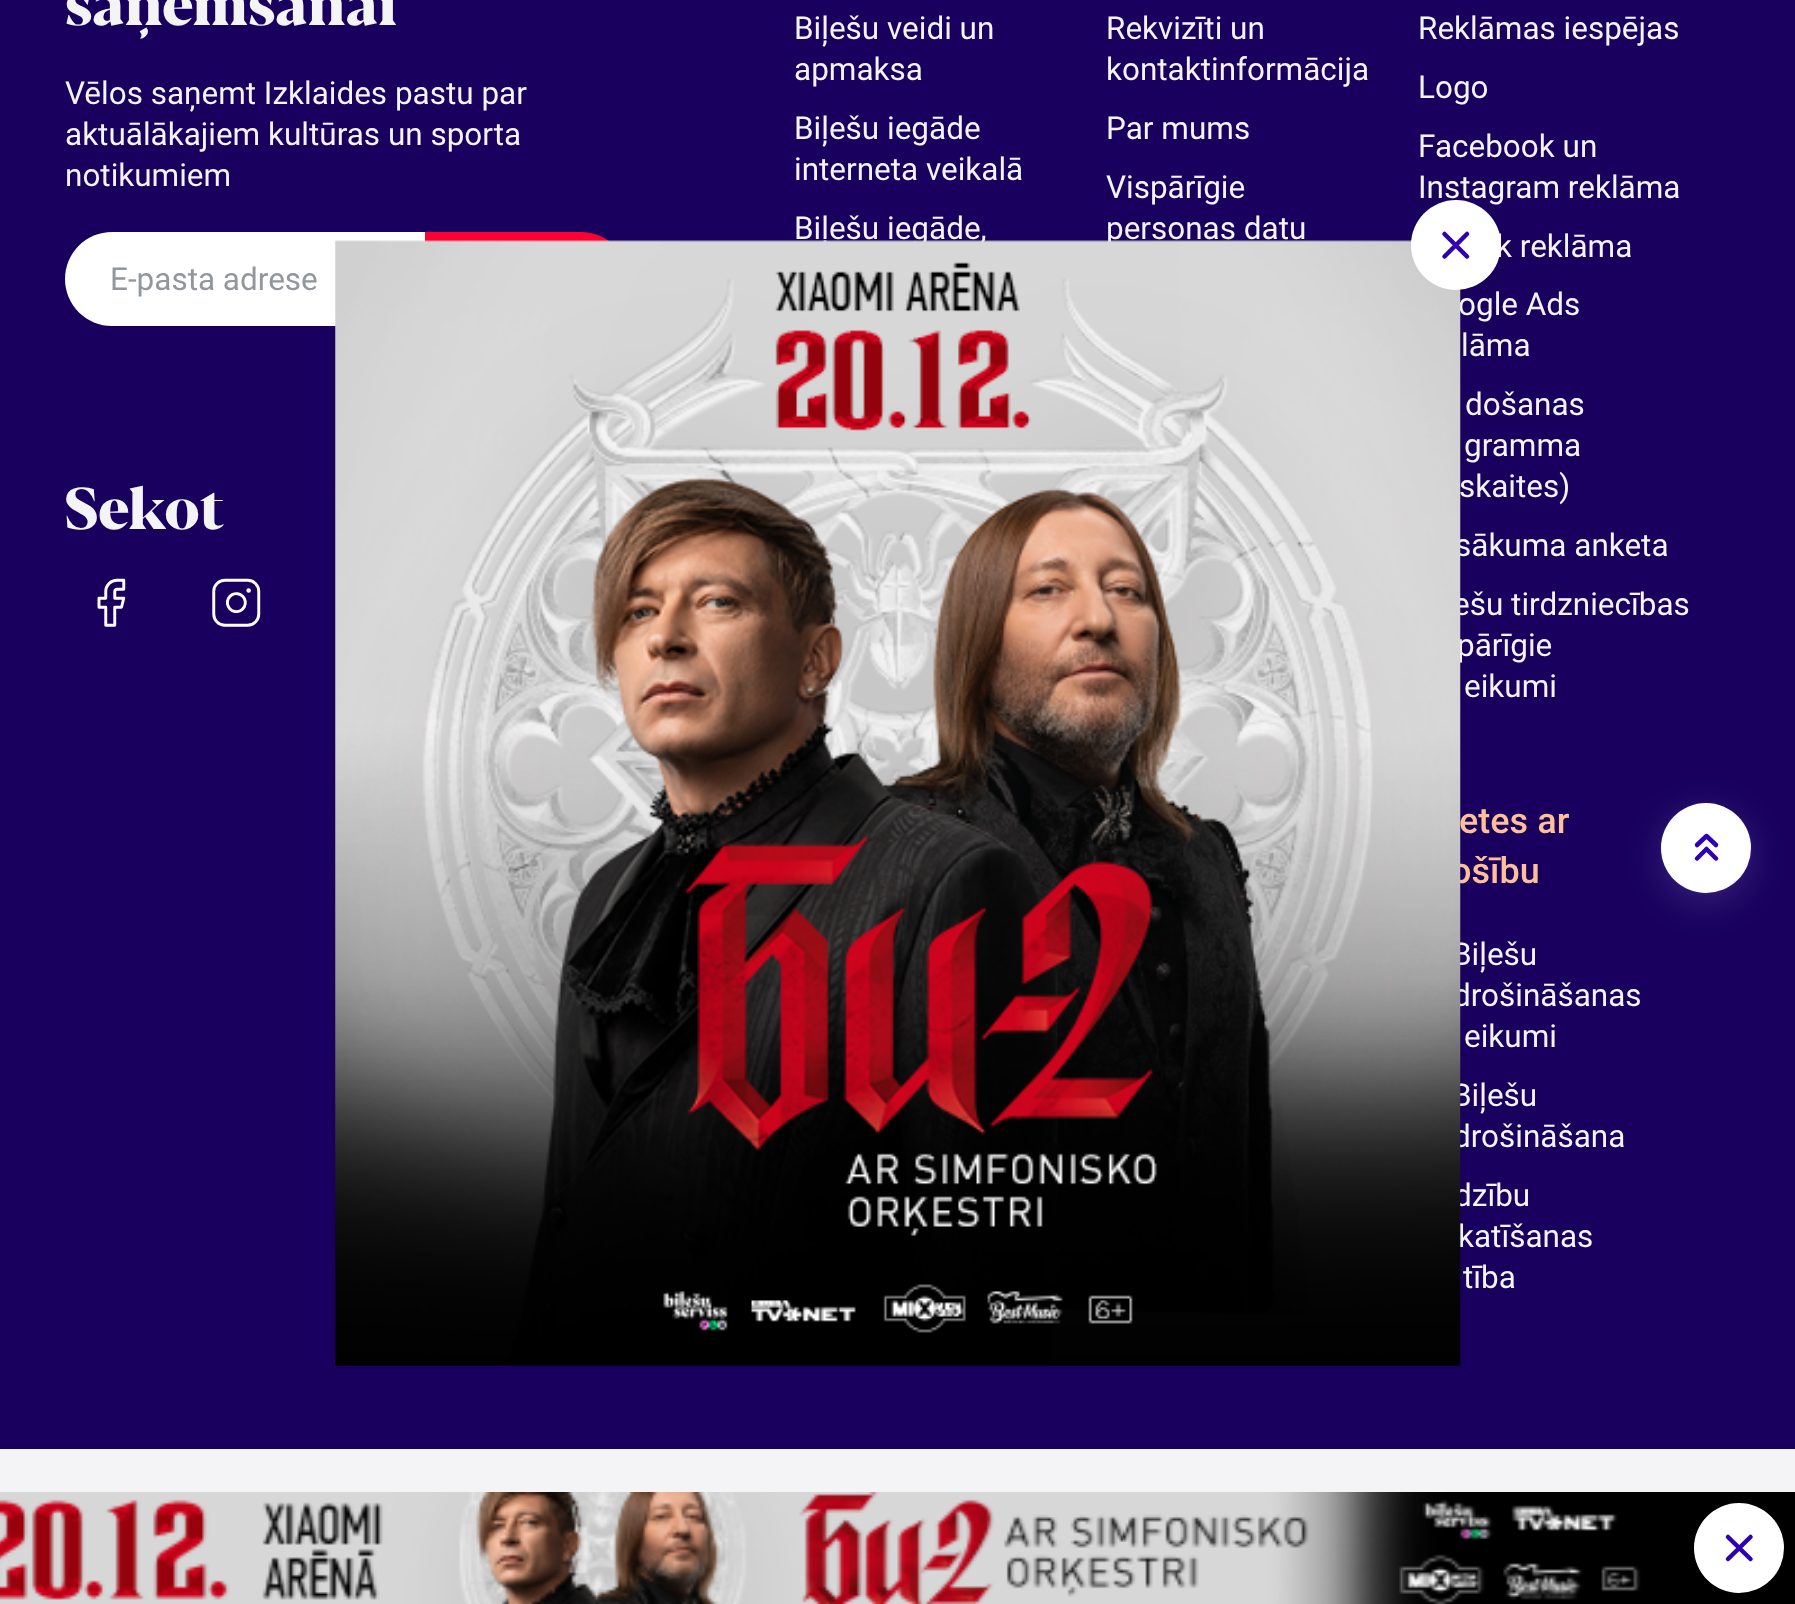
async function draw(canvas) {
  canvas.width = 1795
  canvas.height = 1604
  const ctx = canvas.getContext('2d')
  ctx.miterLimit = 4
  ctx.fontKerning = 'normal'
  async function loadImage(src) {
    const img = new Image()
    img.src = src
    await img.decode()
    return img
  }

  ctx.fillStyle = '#19005f'
  ctx.fillRect(0, 0, 1795, 1604)
  ctx.font = '800 58.5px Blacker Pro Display'
  ctx.fillStyle = '#f4f4f6'
  ctx.fillText('saņemšanai', 65, 25)
  ctx.font = '31.5px Roboto'
  ctx.fillText('Vēlos saņemt Izklaides pastu par', 65, 104)
  ctx.fillText('aktuālākajiem kultūras un sporta', 65, 145)
  ctx.fillText('notikumiem', 65, 186)
  ctx.fillStyle = '#fff'
  ctx.beginPath()
  ctx.roundRect(65, 232, 360, 94, [47, 0, 0, 47])
  ctx.fill()
  ctx.fillStyle = '#91979d'
  ctx.fillText('E-pasta adrese', 110, 290)
  ctx.fillStyle = '#f03'
  ctx.beginPath()
  ctx.roundRect(425, 232, 203, 94, [0, 47, 47, 0])
  ctx.fill()
  ctx.font = '800 58.5px Blacker Pro Display'
  ctx.fillStyle = '#f4f4f6'
  ctx.fillText('Sekot', 65, 529)
  ctx.drawImage(await loadImage('image0.png'), 97, 578, 29, 49)
  ctx.drawImage(await loadImage('image1.png'), 212, 578, 49, 49)
  ctx.font = '31.5px Roboto'
  ctx.fillText('Biļešu veidi un', 794, 39)
  ctx.fillText('apmaksa', 794, 80)
  ctx.fillText('Biļešu iegāde', 794, 139)
  ctx.fillText('interneta veikalā', 794, 180)
  ctx.fillText('Biļešu iegāde,', 794, 239)
  ctx.fillText('Rekvizīti un', 1106, 39)
  ctx.fillText('kontaktinformācija', 1106, 80)
  ctx.fillText('Par mums', 1106, 139)
  ctx.fillText('Vispārīgie', 1106, 198)
  ctx.fillText('personas datu', 1106, 239)
  ctx.fillText('Reklāmas iespējas', 1418, 39)
  ctx.fillText('Logo', 1418, 98)
  ctx.fillText('Facebook un', 1418, 157)
  ctx.fillText('Instagram reklāma', 1418, 198)
  ctx.fillText('k reklāma', 1496, 257)
  ctx.fillText('ogle Ads', 1458, 315)
  ctx.fillText('lāma', 1461, 356)
  ctx.fillText('došanas', 1465, 415)
  ctx.fillText('gramma', 1464, 456)
  ctx.fillText('skaites)', 1459, 497)
  ctx.fillText('sākuma anketa', 1455, 556)
  ctx.fillText('ešu tirdzniecības', 1453, 615)
  ctx.fillText('pārīgie', 1457, 656)
  ctx.fillText('eikumi', 1464, 697)
  ctx.font = '500 36px Roboto'
  ctx.fillStyle = '#ffbf97'
  ctx.fillText('etes ar', 1459, 833)
  ctx.fillText('ošību', 1451, 883)
  ctx.font = '31.5px Roboto'
  ctx.fillStyle = '#f4f4f6'
  ctx.fillText('Biļešu', 1452, 965)
  ctx.fillText('drošināšanas', 1453, 1006)
  ctx.fillText('eikumi', 1464, 1047)
  ctx.fillText('Biļešu', 1452, 1106)
  ctx.fillText('drošināšana', 1453, 1147)
  ctx.fillText('dzību', 1454, 1206)
  ctx.fillText('katīšanas', 1458, 1247)
  ctx.fillText('tība', 1463, 1288)
  ctx.fillRect(0, 1449, 1795, 43)
  ctx.drawImage(await loadImage('image2.png'), 335, 240, 1126, 1126)
  ctx.fillStyle = '#fff'
  ctx.beginPath()
  ctx.arc(1456, 245, 45, 0, 2 * Math.PI)
  ctx.fill()
  ctx.beginPath()
  ctx.moveTo(1467, 234)
  ctx.lineTo(1444.5, 256.5)
  ctx.moveTo(1444.5, 234)
  ctx.lineTo(1467, 256.5)
  ctx.strokeStyle = '#2f00b2'
  ctx.lineWidth = 4.5
  ctx.lineCap = 'round'
  ctx.lineJoin = 'round'
  ctx.stroke()
  ctx.fillStyle = '#d3d5ff0f'
  ctx.filter = 'blur(2px)'
  ctx.beginPath()
  ctx.roundRect(1661, 803, 90, 90, 45)
  ctx.fill()
  ctx.filter = 'none'
  ctx.fillStyle = '#d3d5ff29'
  ctx.filter = 'blur(18px)'
  ctx.beginPath()
  ctx.roundRect(1661, 812, 90, 90, 45)
  ctx.fill()
  ctx.filter = 'none'
  ctx.fillStyle = '#fff'
  ctx.beginPath()
  ctx.arc(1706, 848, 45, 0, 2 * Math.PI)
  ctx.fill()
  ctx.beginPath()
  ctx.moveTo(1716, 845)
  ctx.lineTo(1706.5, 836)
  ctx.lineTo(1697, 845)
  ctx.moveTo(1716, 858.5)
  ctx.lineTo(1706.5, 849)
  ctx.lineTo(1697, 858.5)
  ctx.stroke()
  ctx.drawImage(await loadImage('image3.png'), 0, 1492, 1795, 112)
  ctx.beginPath()
  ctx.arc(1739, 1548, 45, 0, 2 * Math.PI)
  ctx.fill()
  ctx.beginPath()
  ctx.moveTo(1750.5, 1537)
  ctx.lineTo(1728, 1559)
  ctx.moveTo(1728, 1537)
  ctx.lineTo(1750.5, 1559)
  ctx.stroke()
}

draw(document.querySelector('canvas'))
